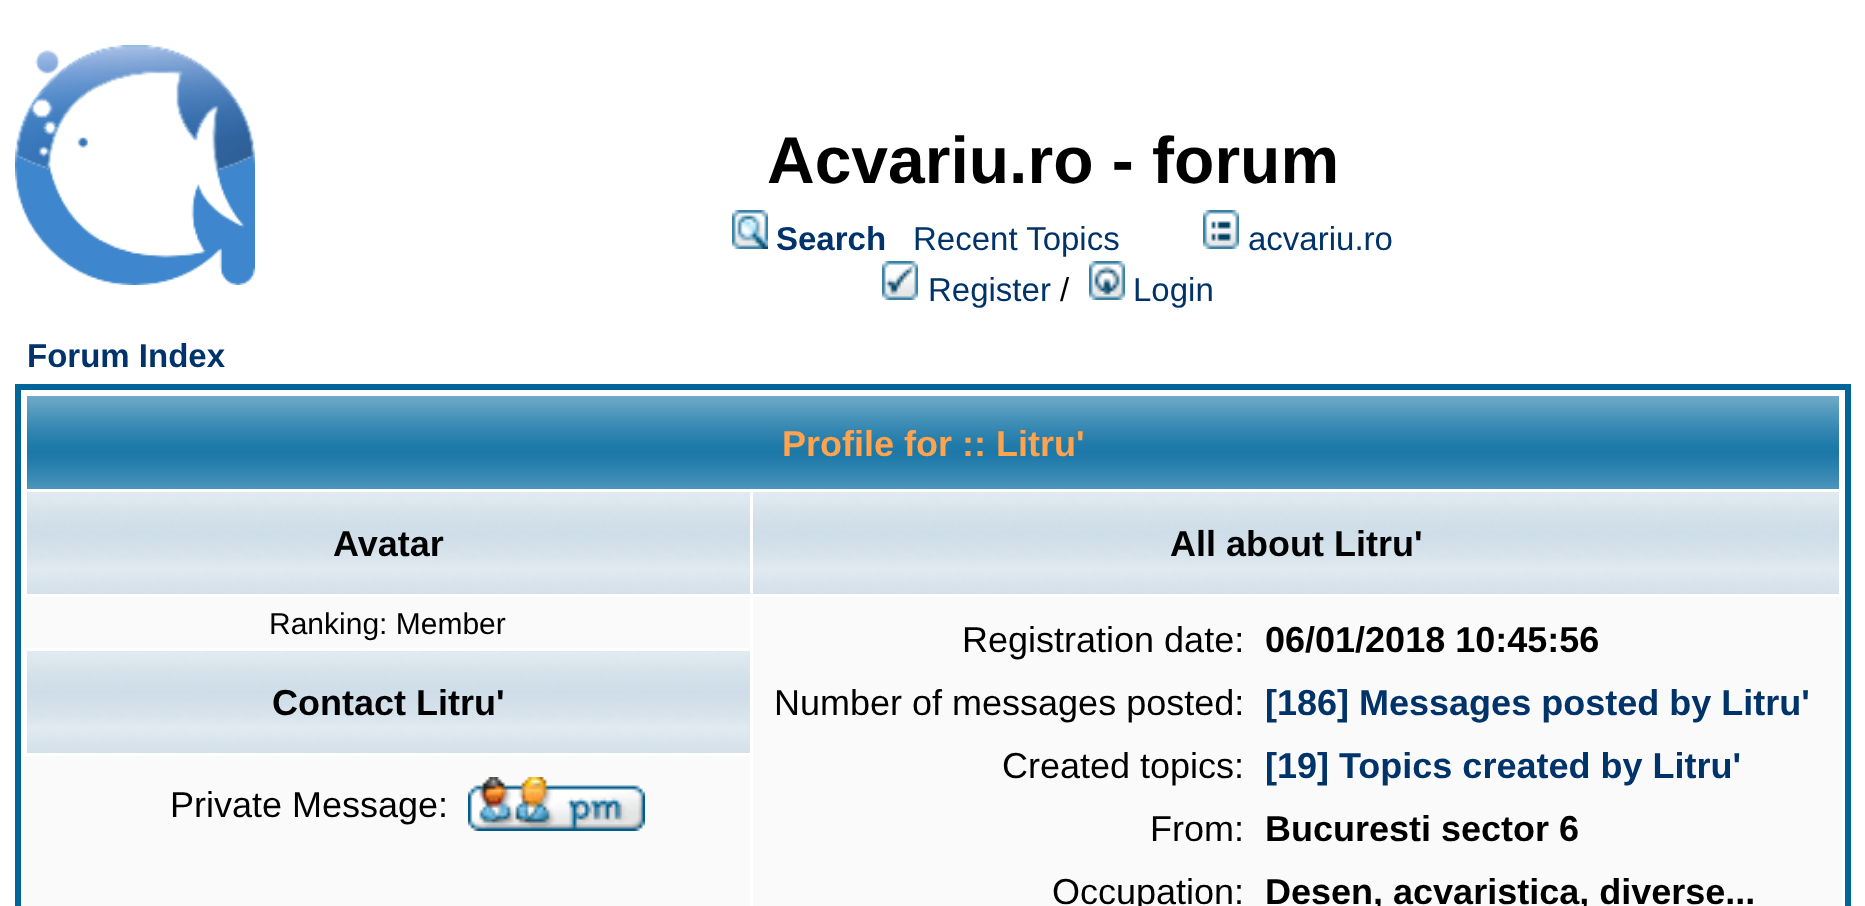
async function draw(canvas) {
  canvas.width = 1865
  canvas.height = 906
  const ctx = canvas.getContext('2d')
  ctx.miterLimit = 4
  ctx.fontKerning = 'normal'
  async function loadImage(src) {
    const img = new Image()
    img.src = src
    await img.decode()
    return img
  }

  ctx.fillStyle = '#fff'
  ctx.fillRect(0, 0, 1865, 906)
  ctx.drawImage(await loadImage('image0.png'), 15, 45, 240, 240)
  ctx.font = 'bold 66px Liberation Sans'
  ctx.fillStyle = '#000'
  ctx.fillText('Acvariu.ro - forum', 767, 183)
  ctx.drawImage(await loadImage('image1.png'), 732, 210, 36, 39)
  ctx.font = 'bold 33px Liberation Sans'
  ctx.fillStyle = '#01336b'
  ctx.fillText('Search', 776, 250)
  ctx.font = '33px Liberation Sans'
  ctx.fillText('Recent Topics', 913, 250)
  ctx.drawImage(await loadImage('image2.png'), 1203, 210, 36, 39)
  ctx.fillText('acvariu.ro', 1248, 250)
  ctx.drawImage(await loadImage('image3.png'), 882, 261, 36, 39)
  ctx.fillText('Register', 928, 301)
  ctx.fillStyle = '#000'
  ctx.fillText('/', 1060, 301)
  ctx.drawImage(await loadImage('image4.png'), 1089, 261, 36, 39)
  ctx.fillStyle = '#01336b'
  ctx.fillText('Login', 1133, 301)
  ctx.font = 'bold 33px Liberation Sans'
  ctx.fillText('Forum Index', 27, 367)
  ctx.strokeStyle = '#069'
  ctx.lineWidth = 6
  ctx.strokeRect(18, 387, 1830, 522)
  ctx.drawImage(await loadImage('image5.png'), 27, 396, 1812, 93)
  ctx.font = 'bold 36px Liberation Sans'
  ctx.fillStyle = '#ffa34f'
  ctx.fillText('Profile for :: Litru\'', 782, 456)
  ctx.drawImage(await loadImage('image6.png'), 27, 492, 723, 102)
  ctx.fillStyle = '#000'
  ctx.fillText('Avatar', 333, 556)
  ctx.drawImage(await loadImage('image7.png'), 753, 492, 1086, 102)
  ctx.fillText('All about Litru\'', 1170, 556)
  ctx.fillStyle = '#fafafa'
  ctx.fillRect(24, 597, 726, 51)
  ctx.font = '30px Liberation Sans'
  ctx.fillStyle = '#000'
  ctx.fillText('Ranking: Member', 269, 634)
  ctx.fillStyle = '#fafafa'
  ctx.fillRect(753, 597, 1089, 309)
  ctx.font = '36px Liberation Sans'
  ctx.fillStyle = '#000'
  ctx.fillText('Registration date:', 962, 652)
  ctx.font = 'bold 36px Liberation Sans'
  ctx.fillText('06/01/2018 10:45:56', 1265, 652)
  ctx.font = '36px Liberation Sans'
  ctx.fillText('Number of messages posted:', 774, 715)
  ctx.font = 'bold 36px Liberation Sans'
  ctx.fillStyle = '#01336b'
  ctx.fillText('[186] Messages posted by Litru\'', 1265, 715)
  ctx.font = '36px Liberation Sans'
  ctx.fillStyle = '#000'
  ctx.fillText('Created topics:', 1002, 778)
  ctx.font = 'bold 36px Liberation Sans'
  ctx.fillStyle = '#01336b'
  ctx.fillText('[19] Topics created by Litru\'', 1265, 778)
  ctx.font = '36px Liberation Sans'
  ctx.fillStyle = '#000'
  ctx.fillText('From:', 1150, 841)
  ctx.font = 'bold 36px Liberation Sans'
  ctx.fillText('Bucuresti sector 6', 1265, 841)
  ctx.font = '36px Liberation Sans'
  ctx.fillText('Occupation:', 1052, 904)
  ctx.font = 'bold 36px Liberation Sans'
  ctx.fillText('Desen, acvaristica, diverse...', 1265, 904)
  ctx.drawImage(await loadImage('image6.png'), 27, 651, 723, 102)
  ctx.fillText('Contact Litru\'', 272, 715)
  ctx.fillStyle = '#fafafa'
  ctx.fillRect(24, 756, 726, 150)
  ctx.font = '36px Liberation Sans'
  ctx.fillStyle = '#000'
  ctx.fillText('Private Message:', 170, 817)
  ctx.drawImage(await loadImage('image8.png'), 468, 777, 177, 54)
}

draw(document.querySelector('canvas'))
